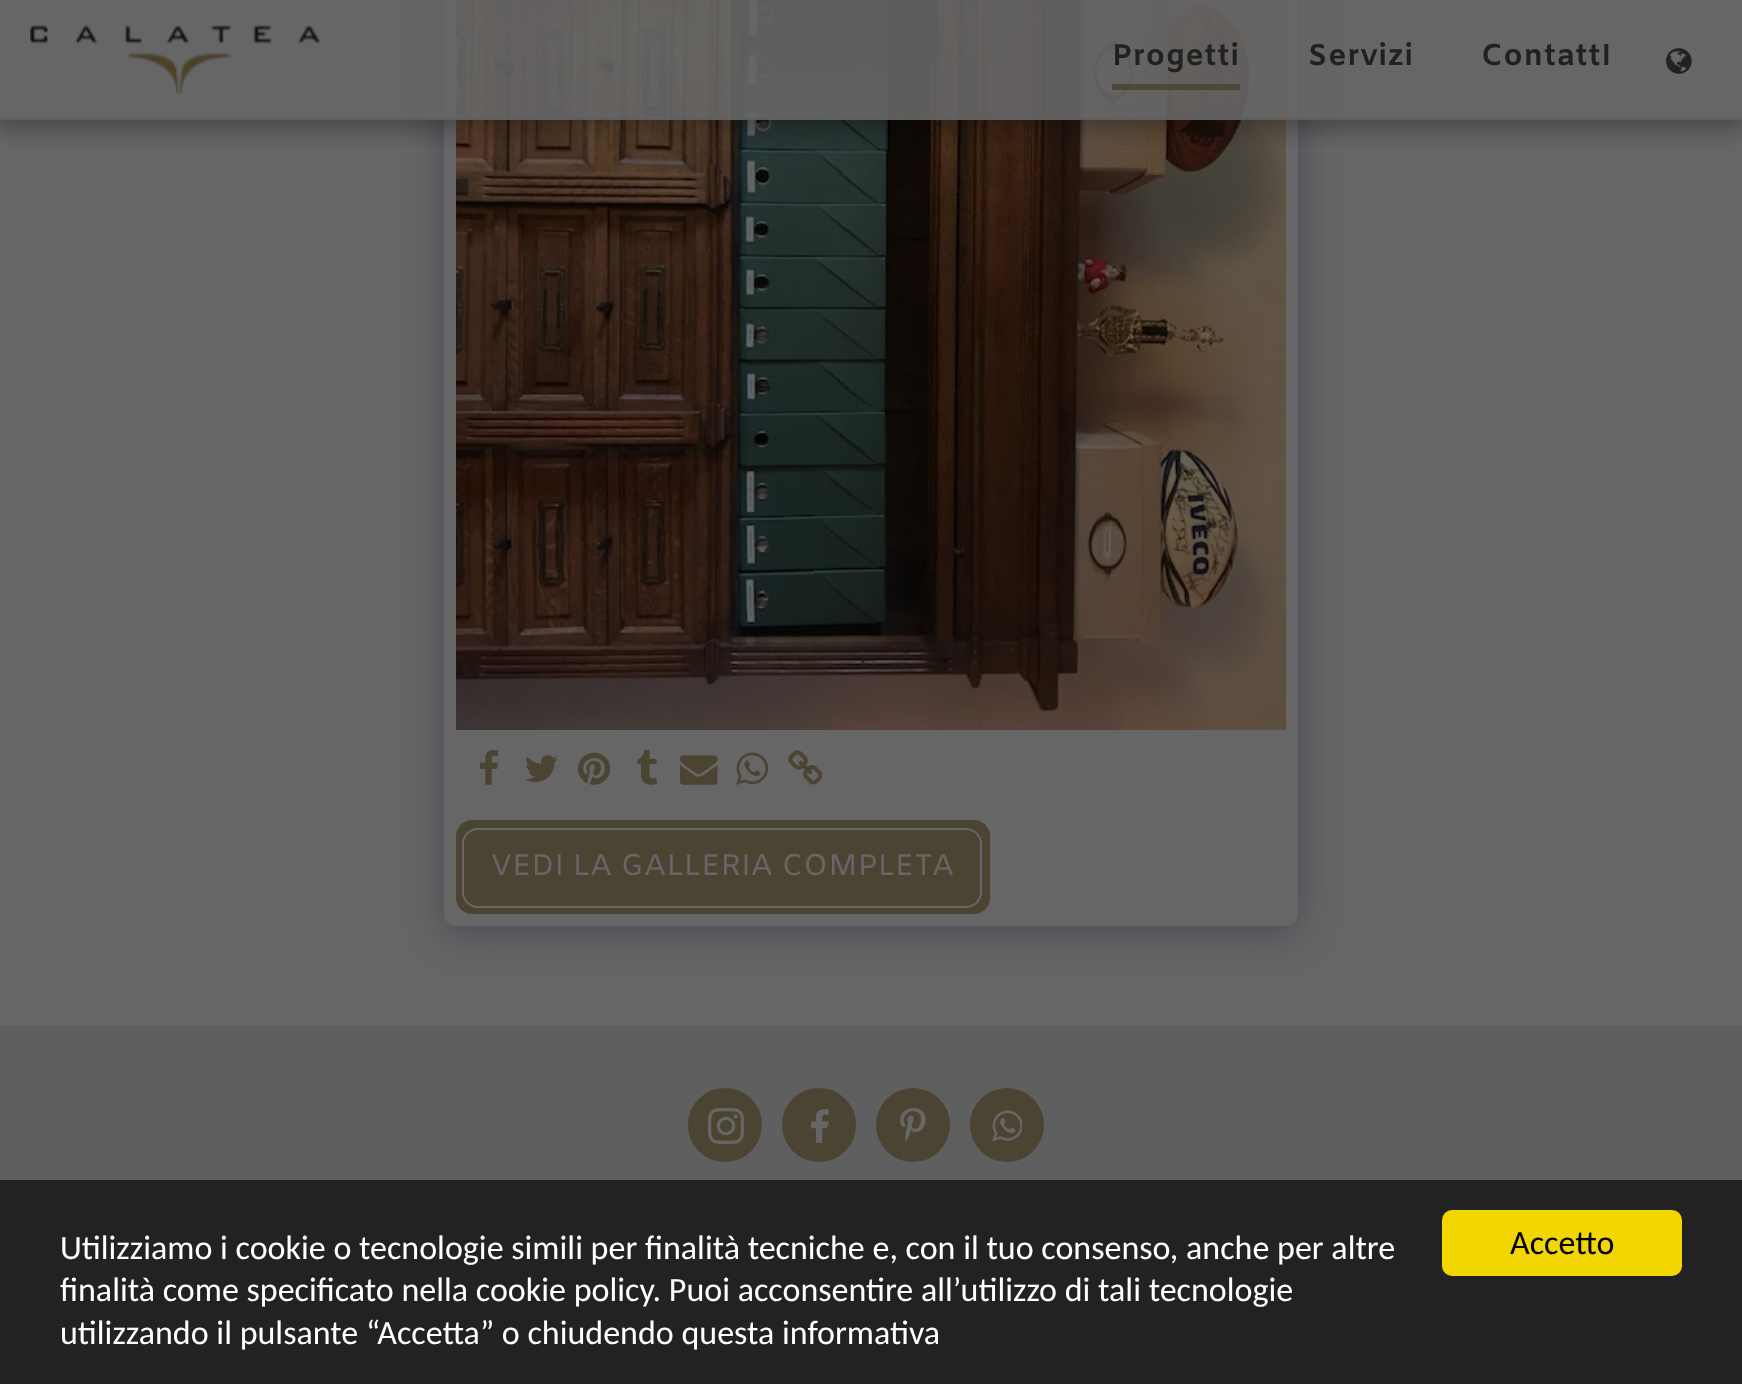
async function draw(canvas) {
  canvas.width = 1742
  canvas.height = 1384
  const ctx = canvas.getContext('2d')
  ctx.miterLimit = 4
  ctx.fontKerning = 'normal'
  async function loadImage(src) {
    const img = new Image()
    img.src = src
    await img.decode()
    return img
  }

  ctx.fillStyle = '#666'
  ctx.fillRect(0, 0, 1742, 1384)
  ctx.fillStyle = '#1f193166'
  ctx.filter = 'blur(20px)'
  ctx.beginPath()
  ctx.roundRect(444, -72, 854, 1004, 12)
  ctx.fill()
  ctx.filter = 'none'
  ctx.fillStyle = '#666'
  ctx.beginPath()
  ctx.roundRect(444, -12, 854, 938, 12)
  ctx.fill()
  ctx.drawImage(await loadImage('image2.png'), 456, 0, 830, 730)
  ctx.save()
  ctx.beginPath()
  ctx.rect(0, 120, 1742, 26)
  ctx.clip()
  ctx.fillStyle = '#00000052'
  ctx.filter = 'blur(12px)'
  ctx.beginPath()
  ctx.rect(-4, 0, 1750, 128)
  ctx.fill()
  ctx.filter = 'none'
  ctx.restore()
  ctx.fillStyle = '#666666e6'
  ctx.fillRect(418, 0, 906, 120)
  ctx.fillStyle = '#5e5e5ee6'
  ctx.fillRect(0, 118, 1742, 2)
  ctx.drawImage(await loadImage('image0.png'), 30, 25, 291, 70)
  ctx.letterSpacing = '1px'
  ctx.font = 'bold 30px Amiko'
  ctx.fillStyle = '#212120'
  ctx.fillText('Progetti', 1112, 65)
  ctx.fillStyle = '#4c4433e6'
  ctx.fillRect(1112, 84, 128, 6)
  ctx.fillStyle = '#212120'
  ctx.fillText('Servizi', 1308, 65)
  ctx.fillText('ContattI', 1481, 65)
  ctx.drawImage(await loadImage('image1.png'), 1666, 48, 26, 26)
  ctx.drawImage(await loadImage('image3.png'), 480, 750, 19, 35)
  ctx.drawImage(await loadImage('image4.png'), 525, 755, 33, 28)
  ctx.drawImage(await loadImage('image5.png'), 578, 752, 32, 33)
  ctx.drawImage(await loadImage('image6.png'), 637, 750, 21, 35)
  ctx.drawImage(await loadImage('image7.png'), 680, 755, 38, 30)
  ctx.drawImage(await loadImage('image8.png'), 736, 752, 32, 33)
  ctx.drawImage(await loadImage('image9.png'), 788, 750, 34, 35)
  ctx.fillStyle = '#4c4433'
  ctx.beginPath()
  ctx.roundRect(457, 821, 532, 92, 15)
  ctx.fill()
  ctx.strokeStyle = '#4c4433'
  ctx.lineWidth = 2
  ctx.stroke()
  ctx.beginPath()
  ctx.roundRect(463, 829, 518, 78, 15)
  ctx.strokeStyle = '#666'
  ctx.stroke()
  ctx.letterSpacing = '0px'
  ctx.font = '30px Amiko'
  ctx.fillStyle = '#666'
  ctx.fillText('VEDI LA GALLERIA COMPLETA', 491, 875)
  ctx.fillStyle = '#5e5e5e'
  ctx.fillRect(0, 1026, 1742, 2)
  ctx.fillStyle = '#605f5f'
  ctx.fillRect(0, 1028, 1742, 152)
  ctx.fillStyle = '#4c4433'
  ctx.beginPath()
  ctx.arc(725, 1125, 36, 0, 2 * Math.PI)
  ctx.fill()
  ctx.strokeStyle = '#4c4433'
  ctx.stroke()
  ctx.drawImage(await loadImage('image10.png'), 708, 1108, 36, 36)
  ctx.beginPath()
  ctx.arc(819, 1125, 36, 0, 2 * Math.PI)
  ctx.fill()
  ctx.stroke()
  ctx.drawImage(await loadImage('image11.png'), 811, 1109, 18, 34)
  ctx.beginPath()
  ctx.arc(913, 1125, 36, 0, 2 * Math.PI)
  ctx.fill()
  ctx.stroke()
  ctx.drawImage(await loadImage('image12.png'), 900, 1108, 26, 34)
  ctx.beginPath()
  ctx.arc(1007, 1125, 36, 0, 2 * Math.PI)
  ctx.fill()
  ctx.stroke()
  ctx.drawImage(await loadImage('image13.png'), 992, 1110, 30, 32)
  ctx.fillStyle = '#222'
  ctx.fillRect(0, 1180, 1742, 204)
  ctx.font = '34px Carlito'
  ctx.fillStyle = '#fff'
  ctx.fillText('Utilizziamo i cookie o tecnologie simili per finalità tecniche e, con il tuo consenso, anche per altre', 60, 1259)
  ctx.fillText('finalità come specificato nella cookie policy. Puoi acconsentire all’utilizzo di tali tecnologie', 60, 1301)
  ctx.fillText('utilizzando il pulsante “Accetta” o chiudendo questa informativa', 60, 1344)
  ctx.fillStyle = '#f1d600'
  ctx.beginPath()
  ctx.roundRect(1442, 1210, 240, 66, 10)
  ctx.fill()
  ctx.fillStyle = '#000'
  ctx.fillText('Accetto', 1510, 1254)
}

draw(document.querySelector('canvas'))
